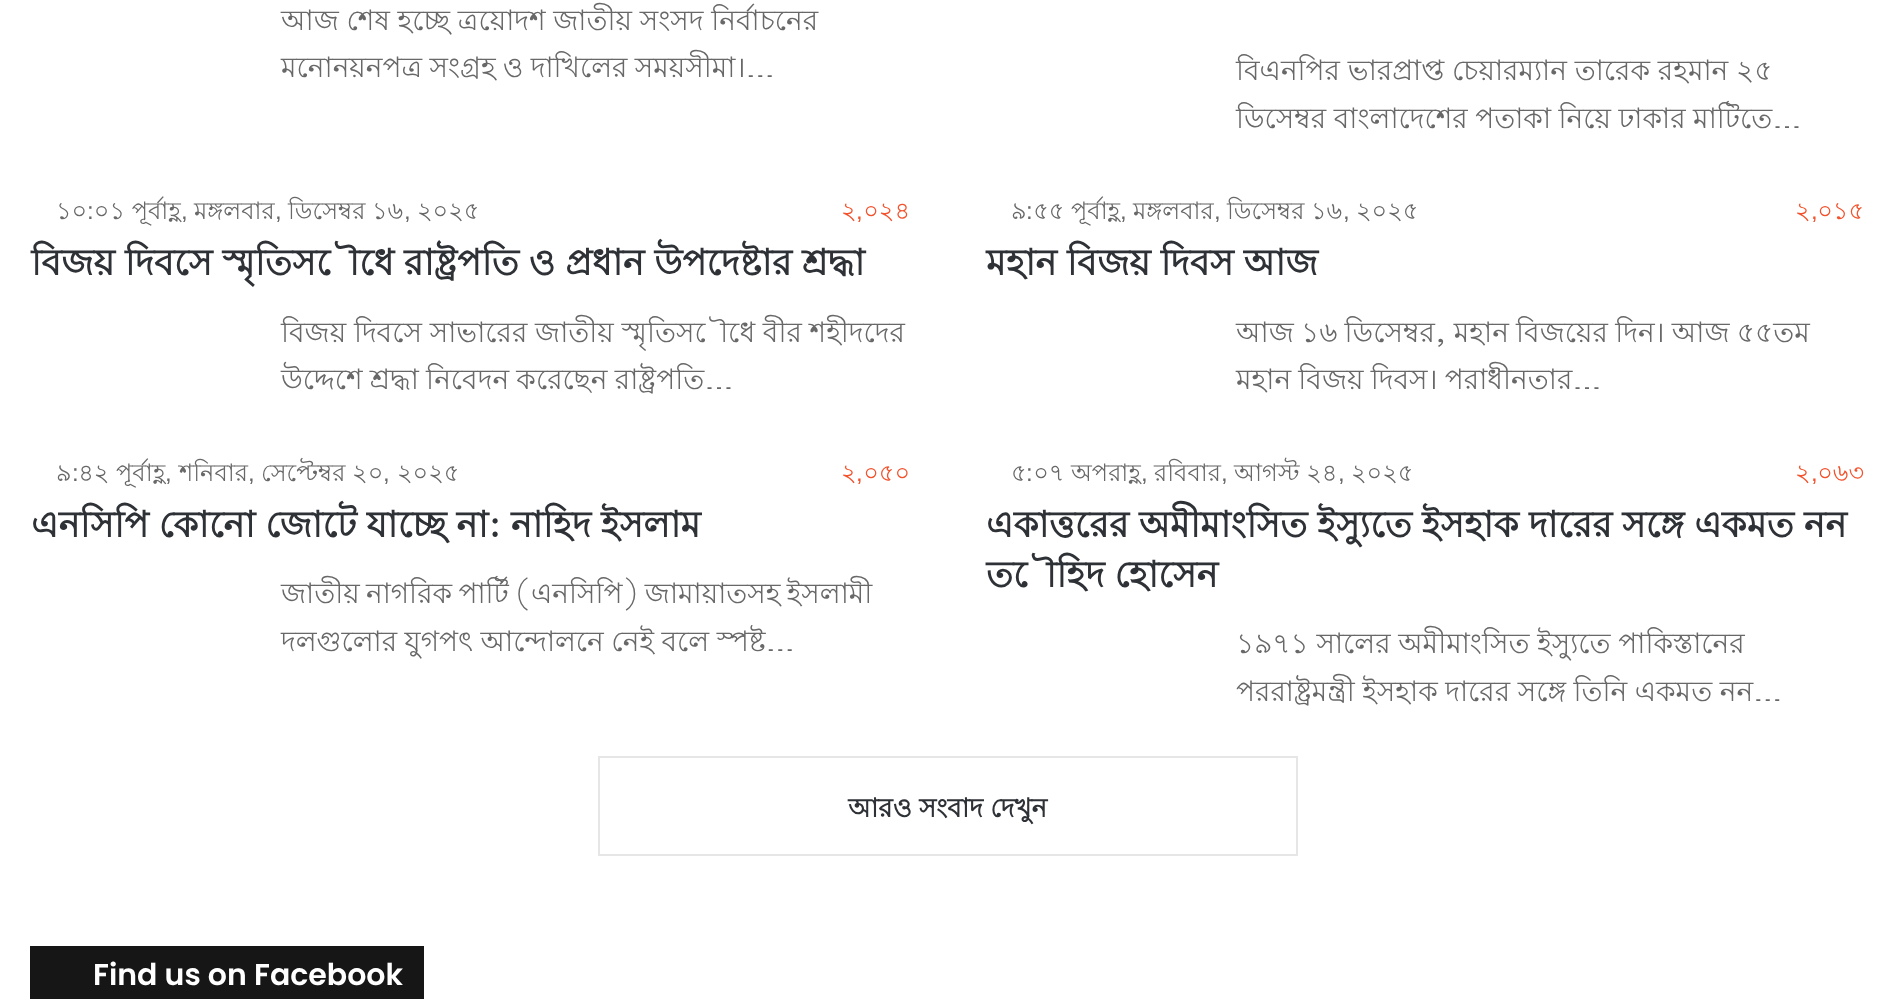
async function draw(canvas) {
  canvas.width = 1896
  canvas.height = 999
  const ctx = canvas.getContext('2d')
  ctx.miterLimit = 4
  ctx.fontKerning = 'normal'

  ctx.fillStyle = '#fff'
  ctx.fillRect(0, 0, 1896, 999)
  ctx.font = '28px Lohit Bengali'
  ctx.fillStyle = '#686868'
  ctx.fillText('আজ শেষ হচ্ছে ত্রয়োদশ জাতীয় সংসদ নির্বাচনের', 281, 30)
  ctx.wordSpacing = '-0.5px'
  ctx.fillText('মনোনয়নপত্র সংগ্রহ ও দাখিলের সময়সীমা।…', 281, 77)
  ctx.wordSpacing = '0px'
  ctx.fillText('বিএনপির ভারপ্রাপ্ত চেয়ারম্যান তারেক রহমান ২৫', 1236, 80)
  ctx.wordSpacing = '-0.25px'
  ctx.fillText('ডিসেম্বর বাংলাদেশের পতাকা নিয়ে ঢাকার মাটিতে…', 1236, 128)
  ctx.wordSpacing = '0px'
  ctx.font = '24px Lohit Bengali'
  ctx.fillText('১০ ০১ পূর্বাহ্ণ', 56, 219)
  ctx.fillText('মঙ্গলবার', 194, 219)
  ctx.fillText('ডিসেম্বর ১৬', 288, 219)
  ctx.fillText('২০২৫', 417, 219)
  ctx.font = '24px Liberation Sans'
  ctx.fillText(':', 87, 219)
  ctx.fillText(',', 181, 219)
  ctx.fillText(',', 275, 219)
  ctx.fillText(',', 404, 219)
  ctx.font = '24px Lohit Bengali'
  ctx.fillStyle = '#f3522c'
  ctx.fillText('২ ০২৪', 841, 219)
  ctx.font = '24px Liberation Sans'
  ctx.fillText(',', 856, 219)
  ctx.font = 'bold 36px Lohit Bengali'
  ctx.fillStyle = '#2e3136'
  ctx.fillText('বিজয় দিবসে স্মৃতিসৌধে রাষ্ট্রপতি ও প্রধান উপদেষ্টার শ্রদ্ধা', 31, 275)
  ctx.font = '28px Lohit Bengali'
  ctx.fillStyle = '#686868'
  ctx.fillText('বিজয় দিবসে সাভারের জাতীয় স্মৃতিসৌধে বীর শহীদদের', 281, 342)
  ctx.wordSpacing = '-0.5px'
  ctx.fillText('উদ্দেশে শ্রদ্ধা নিবেদন করেছেন রাষ্ট্রপতি…', 281, 389)
  ctx.wordSpacing = '0px'
  ctx.font = '24px Lohit Bengali'
  ctx.fillText('৯ ৫৫ পূর্বাহ্ণ', 1011, 219)
  ctx.fillText('মঙ্গলবার', 1133, 219)
  ctx.fillText('ডিসেম্বর ১৬', 1227, 219)
  ctx.fillText('২০২৫', 1356, 219)
  ctx.font = '24px Liberation Sans'
  ctx.fillText(':', 1026, 219)
  ctx.fillText(',', 1120, 219)
  ctx.fillText(',', 1214, 219)
  ctx.fillText(',', 1343, 219)
  ctx.font = '24px Lohit Bengali'
  ctx.fillStyle = '#f3522c'
  ctx.fillText('২ ০১৫', 1795, 219)
  ctx.font = '24px Liberation Sans'
  ctx.fillText(',', 1811, 219)
  ctx.font = 'bold 36px Lohit Bengali'
  ctx.fillStyle = '#2e3136'
  ctx.fillText('মহান বিজয় দিবস আজ', 986, 275)
  ctx.wordSpacing = '-0.5px'
  ctx.font = '28px Lohit Bengali'
  ctx.fillStyle = '#686868'
  ctx.fillText('আজ ১৬ ডিসেম্বর, মহান বিজয়ের দিন। আজ ৫৫তম', 1236, 342)
  ctx.fillText('মহান বিজয় দিবস। পরাধীনতার…', 1236, 389)
  ctx.wordSpacing = '0px'
  ctx.font = '24px Lohit Bengali'
  ctx.fillText('৯ ৪২ পূর্বাহ্ণ', 56, 481)
  ctx.fillText('শনিবার', 179, 481)
  ctx.fillText('সেপ্টেম্বর ২০', 261, 481)
  ctx.fillText('২০২৫', 397, 481)
  ctx.font = '24px Liberation Sans'
  ctx.fillText(':', 72, 481)
  ctx.fillText(',', 165, 481)
  ctx.fillText(',', 248, 481)
  ctx.fillText(',', 383, 481)
  ctx.font = '24px Lohit Bengali'
  ctx.fillStyle = '#f3522c'
  ctx.fillText('২ ০৫০', 841, 481)
  ctx.font = '24px Liberation Sans'
  ctx.fillText(',', 856, 481)
  ctx.font = 'bold 36px Lohit Bengali'
  ctx.fillStyle = '#2e3136'
  ctx.fillText('এনসিপি কোনো জোটে যাচ্ছে না: নাহিদ ইসলাম', 31, 537)
  ctx.wordSpacing = '-1.5px'
  ctx.font = '28px Lohit Bengali'
  ctx.fillStyle = '#686868'
  ctx.fillText('জাতীয় নাগরিক পার্টি (এনসিপি) জামায়াতসহ ইসলামী', 281, 603)
  ctx.wordSpacing = '-0.25px'
  ctx.fillText('দলগুলোর যুগপৎ আন্দোলনে নেই বলে স্পষ্ট…', 281, 651)
  ctx.wordSpacing = '0px'
  ctx.font = '24px Lohit Bengali'
  ctx.fillText('৫ ০৭ অপরাহ্ণ', 1011, 481)
  ctx.fillText('রবিবার', 1154, 481)
  ctx.fillText('আগস্ট ২৪', 1234, 481)
  ctx.fillText('২০২৫', 1351, 481)
  ctx.font = '24px Liberation Sans'
  ctx.fillText(':', 1026, 481)
  ctx.fillText(',', 1141, 481)
  ctx.fillText(',', 1221, 481)
  ctx.fillText(',', 1338, 481)
  ctx.font = '24px Lohit Bengali'
  ctx.fillStyle = '#f3522c'
  ctx.fillText('২ ০৬৩', 1795, 481)
  ctx.font = '24px Liberation Sans'
  ctx.fillText(',', 1811, 481)
  ctx.font = 'bold 36px Lohit Bengali'
  ctx.fillStyle = '#2e3136'
  ctx.fillText('একাত্তরের অমীমাংসিত ইস্যুতে ইসহাক দারের সঙ্গে একমত নন', 986, 537)
  ctx.fillText('তৌহিদ হোসেন', 986, 587)
  ctx.font = '28px Lohit Bengali'
  ctx.fillStyle = '#686868'
  ctx.fillText('১৯৭১ সালের অমীমাংসিত ইস্যুতে পাকিস্তানের', 1236, 653)
  ctx.wordSpacing = '-0.25px'
  ctx.fillText('পররাষ্ট্রমন্ত্রী ইসহাক দারের সঙ্গে তিনি একমত নন…', 1236, 701)
  ctx.strokeStyle = '#e6e6e6'
  ctx.lineWidth = 2
  ctx.strokeRect(599, 757, 698, 98)
  ctx.wordSpacing = '0px'
  ctx.font = 'bold 26px Lohit Bengali'
  ctx.fillStyle = '#2e3136'
  ctx.fillText('আরও সংবাদ দেখুন', 848, 817)
  ctx.fillStyle = '#161616'
  ctx.fillRect(30, 946, 394, 53)
  ctx.font = '600 30px Poppins'
  ctx.fillStyle = '#fff'
  ctx.fillText('Find us on Facebook', 93, 985)
}

draw(document.querySelector('canvas'))
